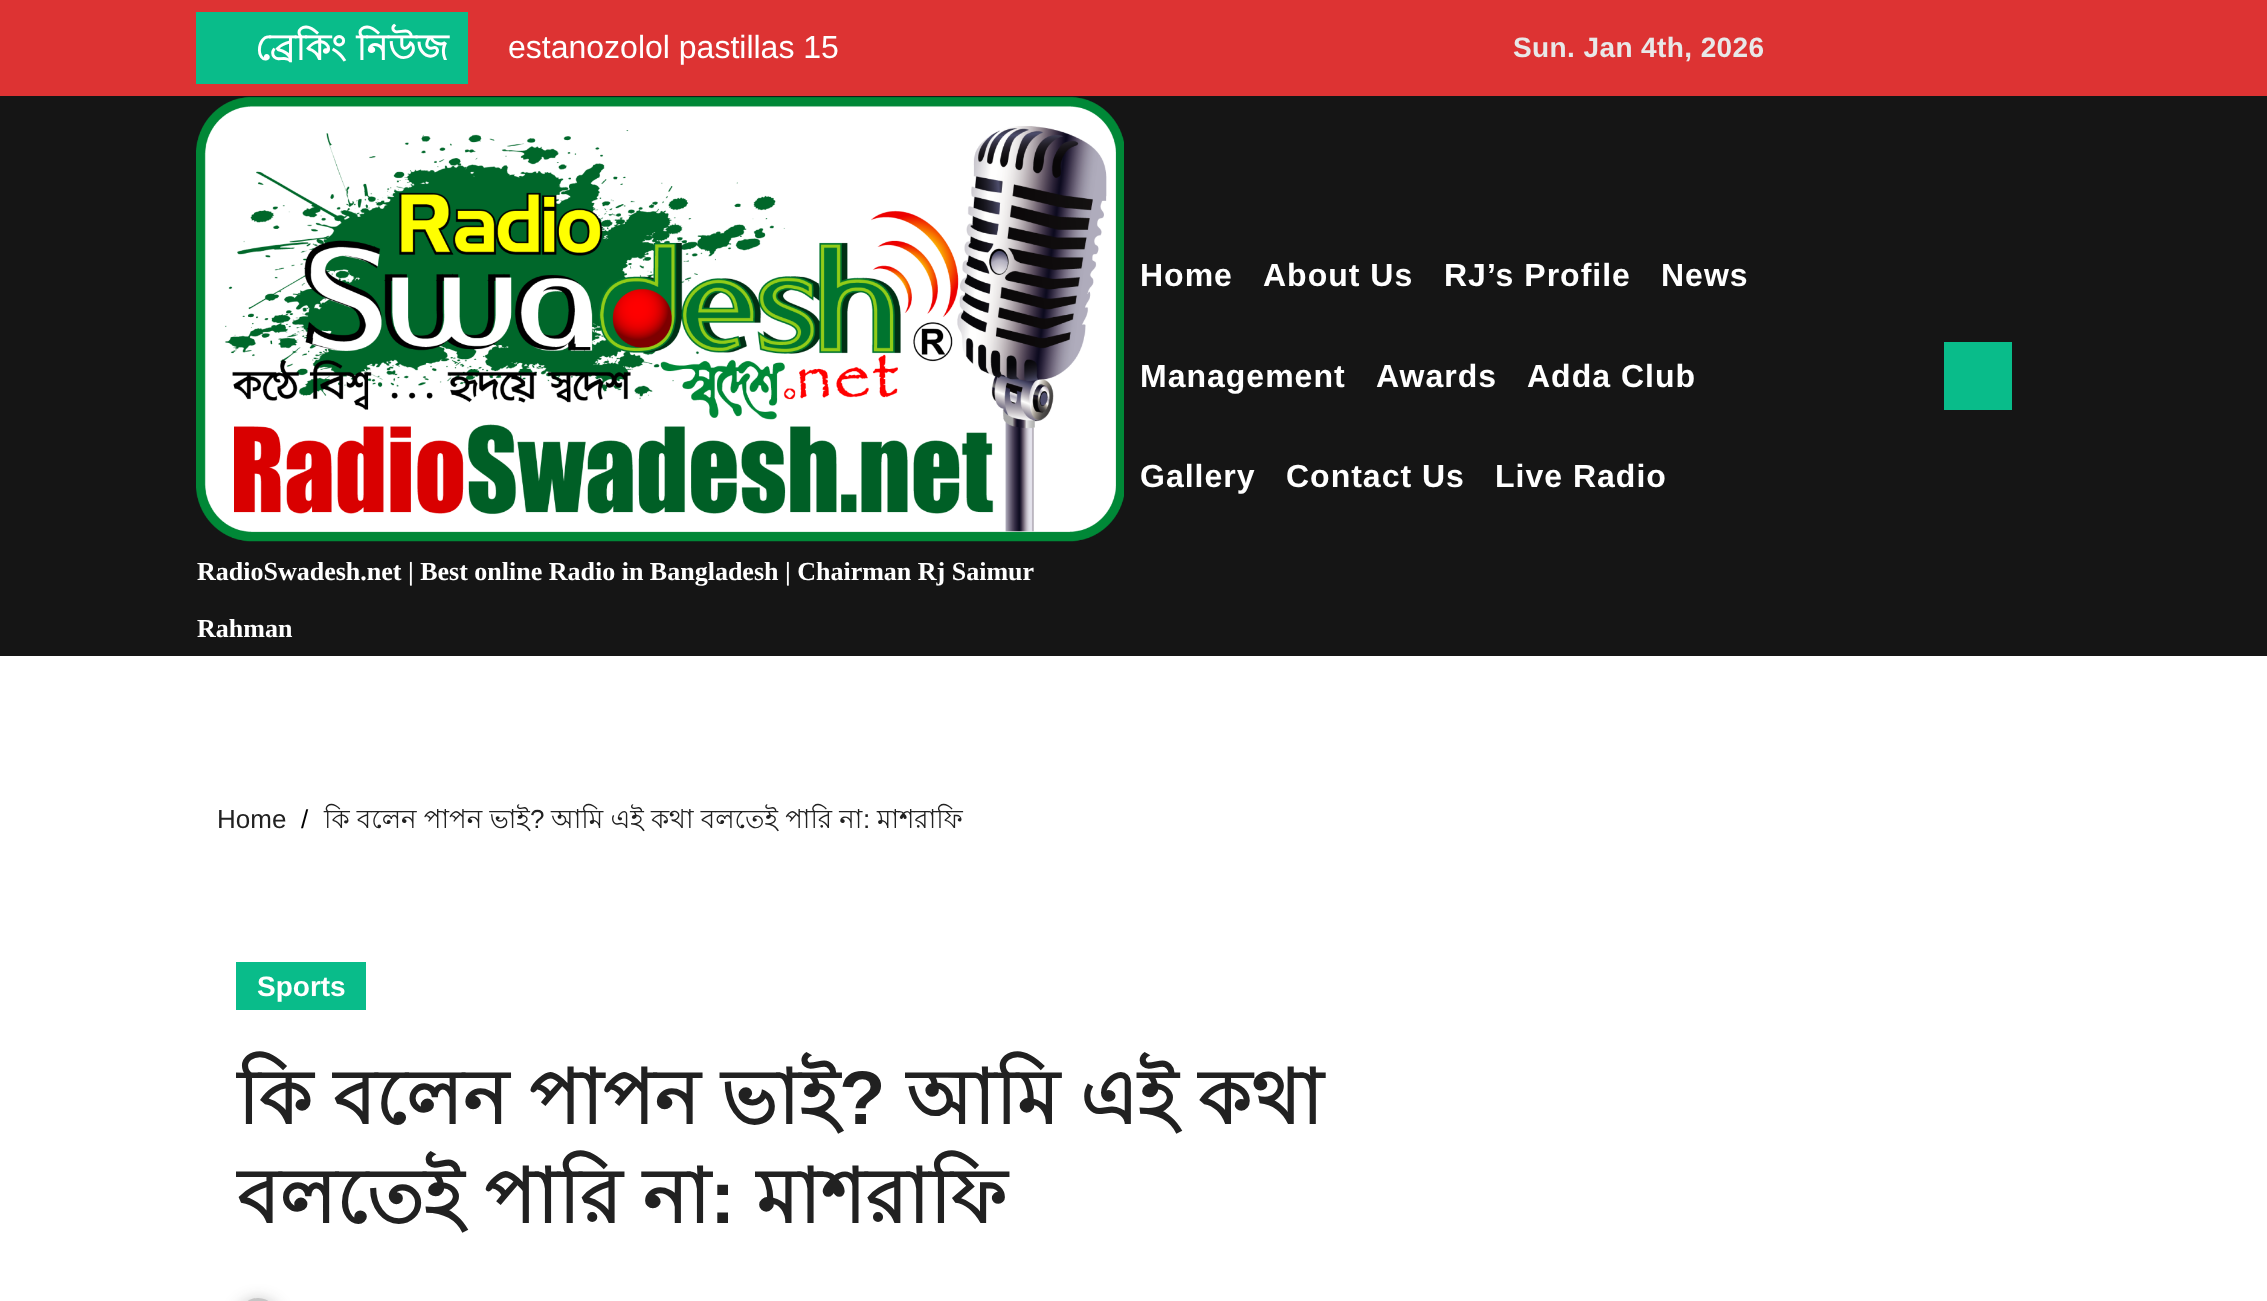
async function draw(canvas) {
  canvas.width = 2267
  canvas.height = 1301
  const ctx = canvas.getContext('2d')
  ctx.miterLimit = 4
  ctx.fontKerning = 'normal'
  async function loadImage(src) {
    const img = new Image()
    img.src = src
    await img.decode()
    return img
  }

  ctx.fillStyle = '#fff'
  ctx.fillRect(0, 0, 2267, 1301)
  ctx.fillStyle = '#d33'
  ctx.fillRect(0, 0, 2267, 96)
  ctx.fillStyle = '#09bc8a'
  ctx.fillRect(196, 12, 272, 72)
  ctx.font = 'bold 36px Lohit Bengali'
  ctx.fillStyle = '#fff'
  ctx.fillText('ব্রেকিং নিউজ', 255, 60)
  ctx.font = '32px Liberation Sans'
  ctx.fillText('estanozolol pastillas 15', 508, 58)
  ctx.letterSpacing = '0.4px'
  ctx.font = 'bold 28px Liberation Sans'
  ctx.fillStyle = '#e8e8e8'
  ctx.fillText('Sun. Jan 4th, 2026', 1513, 57)
  ctx.fillStyle = '#151515'
  ctx.fillRect(0, 96, 2267, 560)
  ctx.letterSpacing = '1px'
  ctx.font = 'bold 32px Liberation Sans'
  ctx.fillStyle = '#fff'
  ctx.fillText('Home', 1140, 286)
  ctx.fillText('About Us', 1263, 286)
  ctx.fillText('RJ’s Profile', 1444, 286)
  ctx.fillText('News', 1661, 286)
  ctx.fillText('Management', 1140, 387)
  ctx.fillText('Awards', 1376, 387)
  ctx.fillText('Adda Club', 1527, 387)
  ctx.fillText('Gallery', 1140, 487)
  ctx.fillText('Contact Us', 1286, 487)
  ctx.fillText('Live Radio', 1495, 487)
  ctx.fillStyle = '#09bc8a'
  ctx.fillRect(1944, 342, 68, 68)
  ctx.drawImage(await loadImage('image0.png'), 196, 96, 928, 446)
  ctx.letterSpacing = '0px'
  ctx.font = 'bold 26px Liberation Serif'
  ctx.fillStyle = '#fff'
  ctx.fillText('RadioSwadesh.net | Best online Radio in Bangladesh | Chairman Rj Saimur', 197, 580)
  ctx.fillText('Rahman', 197, 637)
  ctx.font = '26px Liberation Sans'
  ctx.fillStyle = '#212121'
  ctx.fillText('Home', 217, 828)
  ctx.fillStyle = '#000'
  ctx.fillText('/', 301, 828)
  ctx.font = '26px Lohit Bengali'
  ctx.fillStyle = '#212121'
  ctx.fillText('কি বলেন পাপন ভাই', 324, 828)
  ctx.font = '26px Liberation Sans'
  ctx.fillText('?', 530, 828)
  ctx.font = '26px Lohit Bengali'
  ctx.fillText('আমি এই কথা বলতেই পারি না', 551, 828)
  ctx.font = '26px Liberation Sans'
  ctx.fillText(':', 863, 828)
  ctx.font = '26px Lohit Bengali'
  ctx.fillText('মাশরাফি', 877, 828)
  ctx.fillStyle = '#09bc8a'
  ctx.fillRect(236, 962, 130, 48)
  ctx.font = 'bold 28px Liberation Sans'
  ctx.fillStyle = '#fff'
  ctx.fillText('Sports', 257, 996)
  ctx.font = 'bold 76px Lohit Bengali'
  ctx.fillStyle = '#212121'
  ctx.fillText('কি বলেন পাপন ভাই', 237, 1124)
  ctx.font = 'bold 76px Liberation Sans'
  ctx.fillText('?', 839, 1124)
  ctx.font = 'bold 76px Lohit Bengali'
  ctx.fillText('আমি এই কথা', 906, 1124)
  ctx.fillText('বলতেই পারি না', 237, 1223)
  ctx.font = 'bold 76px Liberation Sans'
  ctx.fillText(':', 710, 1223)
  ctx.font = 'bold 76px Lohit Bengali'
  ctx.fillText('মাশরাফি', 756, 1223)
  ctx.fillStyle = '#2121214d'
  ctx.filter = 'blur(8px)'
  ctx.beginPath()
  ctx.roundRect(236, 1300, 44, 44, 22)
  ctx.fill()
  ctx.filter = 'none'
  ctx.drawImage(await loadImage('image1.png'), 248, 1298, 20, 3)
}

draw(document.querySelector('canvas'))
